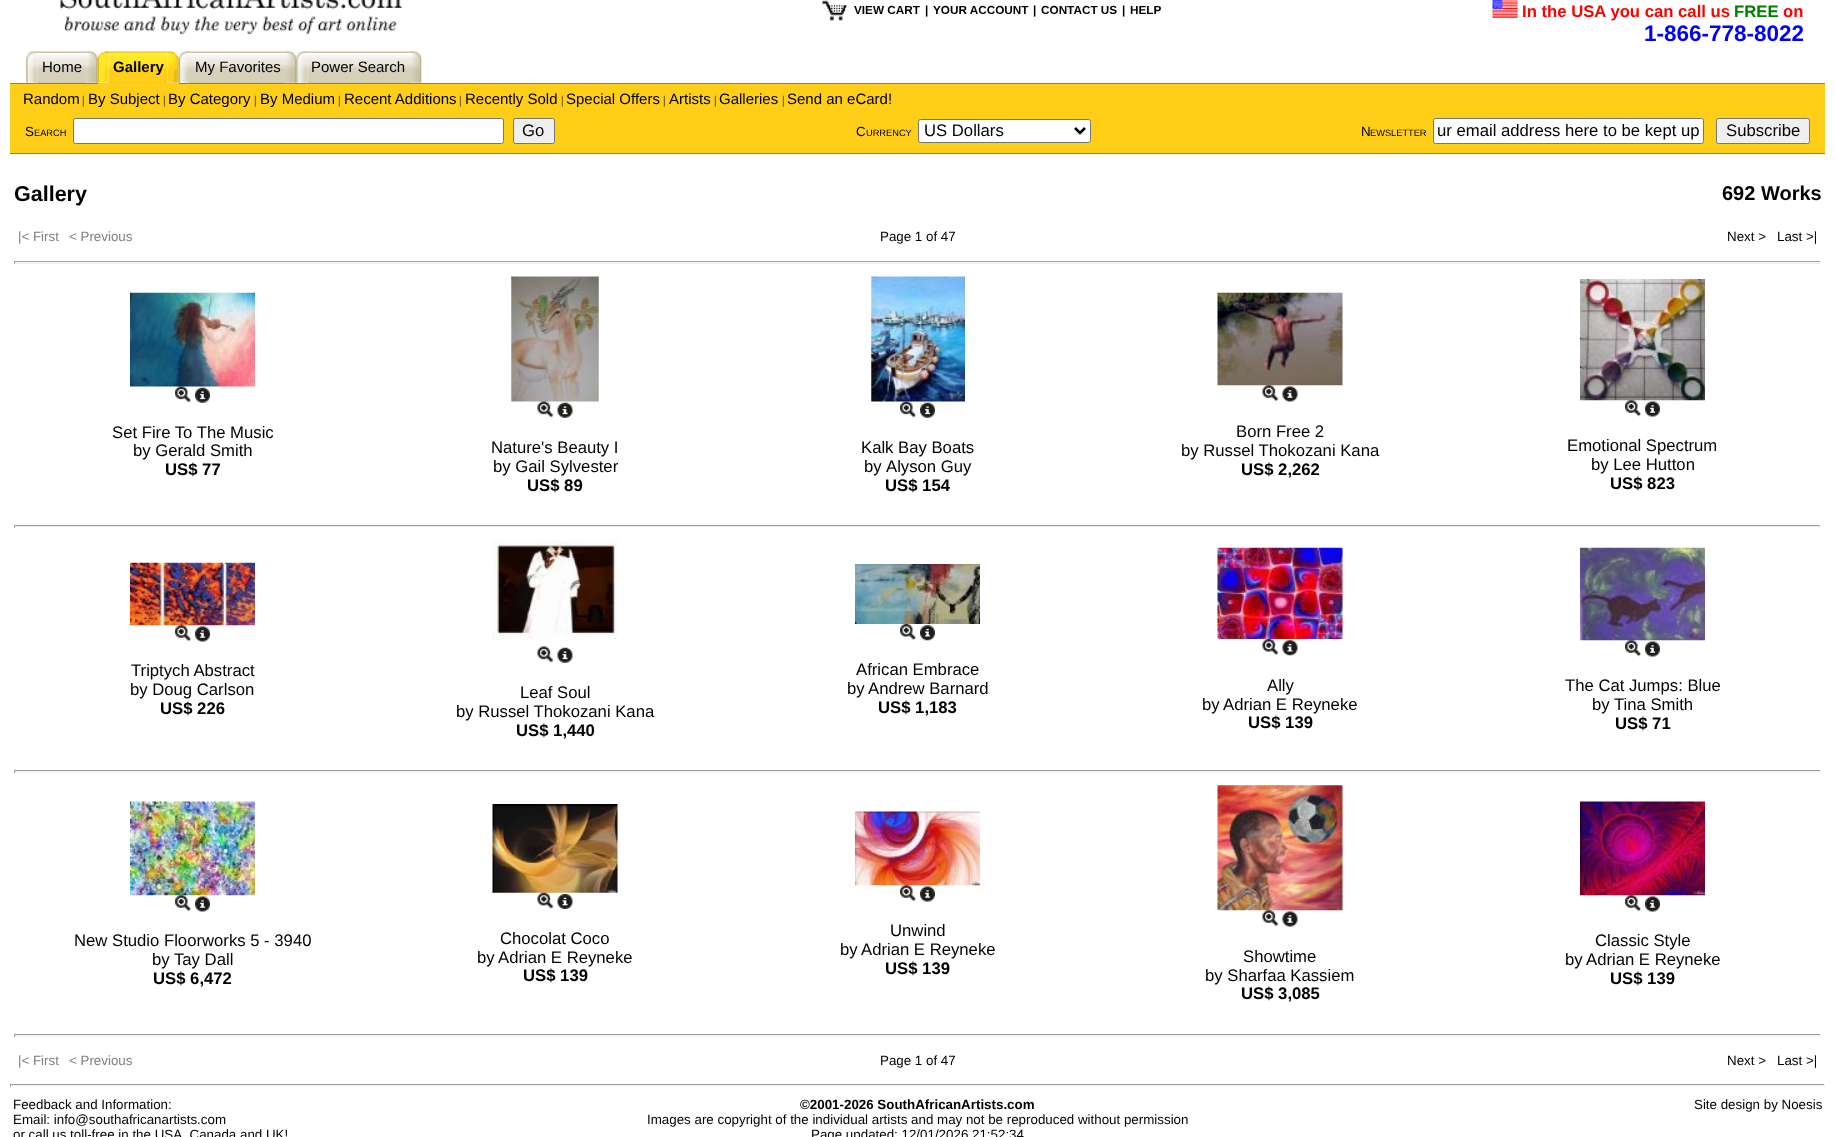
async function draw(canvas) {
  canvas.width = 1835
  canvas.height = 1137
  const ctx = canvas.getContext('2d')
  ctx.miterLimit = 4
  ctx.fontKerning = 'normal'
  async function loadImage(src) {
    const img = new Image()
    img.src = src
    await img.decode()
    return img
  }

  ctx.fillStyle = '#fff'
  ctx.fillRect(0, 0, 1835, 1137)
  ctx.drawImage(await loadImage('image0.png'), 59, 0, 344, 35)
  ctx.drawImage(await loadImage('image1.png'), 822, 0, 25, 21)
  ctx.font = 'bold 11.75px Liberation Sans'
  ctx.fillStyle = '#000'
  ctx.fillText('VIEW CART', 854, 14)
  ctx.fillText('|', 925, 14)
  ctx.fillText('YOUR ACCOUNT', 933, 14)
  ctx.fillText('|', 1033, 14)
  ctx.fillText('CONTACT US', 1041, 14)
  ctx.fillText('|', 1122, 14)
  ctx.fillText('HELP', 1130, 14)
  ctx.drawImage(await loadImage('image2.png'), 1492, 0, 26, 18)
  ctx.font = 'bold 16.7px Liberation Sans'
  ctx.fillStyle = '#f00'
  ctx.fillText('In the USA you can call us', 1522, 17)
  ctx.fillStyle = '#008000'
  ctx.fillText('FREE', 1734, 17)
  ctx.fillStyle = '#f00'
  ctx.fillText('on', 1783, 17)
  ctx.font = 'bold 22.5px Liberation Sans'
  ctx.fillStyle = '#00f'
  ctx.fillText('1-866-778-8022', 1644, 41)
  ctx.fillStyle = '#808080'
  ctx.fillRect(10, 83, 28, 1)
  ctx.drawImage(await loadImage('image8.png'), 37, 51, 50, 33)
  ctx.drawImage(await loadImage('image3.png'), 26, 51, 12, 32)
  ctx.drawImage(await loadImage('image4.png'), 86, 51, 12, 32)
  ctx.fillStyle = '#ffce19'
  ctx.fillRect(98, 83, 11, 1)
  ctx.drawImage(await loadImage('image9.png'), 108, 51, 60, 33)
  ctx.drawImage(await loadImage('image5.png'), 97, 51, 12, 32)
  ctx.drawImage(await loadImage('image6.png'), 167, 51, 12, 32)
  ctx.fillStyle = '#808080'
  ctx.fillRect(179, 83, 129, 1)
  ctx.drawImage(await loadImage('image7.png'), 178, 51, 12, 32)
  ctx.fillRect(38, 83, 60, 1)
  ctx.font = '15px Liberation Sans'
  ctx.fillStyle = '#000'
  ctx.fillText('Home', 42, 72)
  ctx.fillStyle = '#ffce19'
  ctx.fillRect(109, 83, 70, 1)
  ctx.font = 'bold 15px Liberation Sans'
  ctx.fillStyle = '#000'
  ctx.fillText('Gallery', 113, 72)
  ctx.drawImage(await loadImage('image10.png'), 190, 51, 95, 32)
  ctx.font = '15px Liberation Sans'
  ctx.fillText('My Favorites', 195, 72)
  ctx.drawImage(await loadImage('image11.png'), 285, 51, 12, 32)
  ctx.drawImage(await loadImage('image13.png'), 307, 51, 103, 33)
  ctx.drawImage(await loadImage('image12.png'), 296, 51, 12, 32)
  ctx.fillStyle = '#808080'
  ctx.fillRect(308, 83, 1517, 1)
  ctx.fillStyle = '#000'
  ctx.fillText('Power Search', 311, 72)
  ctx.drawImage(await loadImage('image14.png'), 410, 51, 12, 32)
  ctx.fillStyle = '#ffce19'
  ctx.fillRect(10, 84, 1815, 69)
  ctx.fillStyle = '#000'
  ctx.fillText('Random', 23, 104)
  ctx.font = '12px Liberation Serif'
  ctx.fillText('|', 82, 104)
  ctx.font = '15px Liberation Sans'
  ctx.fillText('By Subject', 88, 104)
  ctx.font = '12px Liberation Serif'
  ctx.fillText('|', 163, 104)
  ctx.font = '15px Liberation Sans'
  ctx.fillText('By Category', 168, 104)
  ctx.font = '12px Liberation Serif'
  ctx.fillText('|', 254, 104)
  ctx.font = '15px Liberation Sans'
  ctx.fillText('By Medium', 260, 104)
  ctx.font = '12px Liberation Serif'
  ctx.fillText('|', 338, 104)
  ctx.font = '15px Liberation Sans'
  ctx.fillText('Recent Additions', 344, 104)
  ctx.font = '12px Liberation Serif'
  ctx.fillText('|', 459, 104)
  ctx.font = '15px Liberation Sans'
  ctx.fillText('Recently Sold', 465, 104)
  ctx.font = '12px Liberation Serif'
  ctx.fillText('|', 561, 104)
  ctx.font = '15px Liberation Sans'
  ctx.fillText('Special Offers', 566, 104)
  ctx.font = '12px Liberation Serif'
  ctx.fillText('|', 663, 104)
  ctx.font = '15px Liberation Sans'
  ctx.fillText('Artists', 669, 104)
  ctx.font = '12px Liberation Serif'
  ctx.fillText('|', 714, 104)
  ctx.font = '15px Liberation Sans'
  ctx.fillText('Galleries', 719, 104)
  ctx.font = '12px Liberation Serif'
  ctx.fillText('|', 782, 104)
  ctx.font = '15px Liberation Sans'
  ctx.fillText('Send an eCard!', 787, 104)
  ctx.fillStyle = '#808080'
  ctx.fillRect(10, 153, 1815, 1)
  ctx.font = '13.35px Liberation Sans'
  ctx.fillStyle = '#000'
  ctx.fillText('S', 25, 136)
  ctx.font = '9.25px Liberation Sans'
  ctx.fillText('EARCH', 34, 136)
  ctx.fillStyle = '#fff'
  ctx.beginPath()
  ctx.roundRect(73.5, 118.5, 430, 25, 2)
  ctx.fill()
  ctx.strokeStyle = '#767676'
  ctx.stroke()
  ctx.fillStyle = '#efefef'
  ctx.beginPath()
  ctx.roundRect(513.5, 118.5, 41, 25, 2)
  ctx.fill()
  ctx.stroke()
  ctx.font = '16.7px Liberation Sans'
  ctx.fillStyle = '#000'
  ctx.fillText('Go', 522, 136)
  ctx.font = '13.35px Liberation Sans'
  ctx.fillText('C', 856, 136)
  ctx.font = '9.25px Liberation Sans'
  ctx.fillText('URRENCY', 866, 136)
  ctx.fillStyle = '#fff'
  ctx.beginPath()
  ctx.roundRect(918.5, 119.5, 172, 23, 2)
  ctx.fill()
  ctx.stroke()
  ctx.beginPath()
  ctx.moveTo(1075, 128)
  ctx.lineTo(1080, 133)
  ctx.lineTo(1085, 128)
  ctx.strokeStyle = '#000'
  ctx.lineWidth = 2.5
  ctx.stroke()
  ctx.font = '16.7px Liberation Sans'
  ctx.fillStyle = '#000'
  ctx.fillText('US Dollars', 924, 136)
  ctx.font = '13.35px Liberation Sans'
  ctx.fillText('N', 1361, 136)
  ctx.font = '9.25px Liberation Sans'
  ctx.fillText('EWSLETTER', 1370, 136)
  ctx.fillStyle = '#fff'
  ctx.beginPath()
  ctx.roundRect(1433.5, 118.5, 270, 25, 2)
  ctx.fill()
  ctx.strokeStyle = '#767676'
  ctx.lineWidth = 1
  ctx.stroke()
  ctx.font = '16.7px Liberation Sans'
  ctx.fillStyle = '#000'
  ctx.fillText('ur email address here to be kept up', 1437, 136)
  ctx.fillStyle = '#efefef'
  ctx.beginPath()
  ctx.roundRect(1716.5, 118.5, 93, 25, 2)
  ctx.fill()
  ctx.stroke()
  ctx.fillStyle = '#000'
  ctx.fillText('Subscribe', 1726, 136)
  ctx.font = 'bold 21.5px Liberation Sans'
  ctx.fillText('Gallery', 14, 201)
  ctx.font = 'bold 20px Liberation Sans'
  ctx.fillText('692 Works', 1722, 200)
  ctx.font = '13.35px Liberation Sans'
  ctx.fillStyle = '#808080'
  ctx.fillText('|< First', 18, 241)
  ctx.fillText('< Previous', 69, 241)
  ctx.fillStyle = '#000'
  ctx.fillText('Page 1 of 47', 880, 241)
  ctx.fillText('Next >', 1727, 241)
  ctx.fillText('Last >|', 1777, 241)
  ctx.fillStyle = '#9f9f9f'
  ctx.fillRect(14, 261, 1807, 1)
  ctx.fillStyle = '#eee'
  ctx.fillRect(1820, 261, 1, 3)
  ctx.fillRect(14, 263, 1807, 1)
  ctx.fillStyle = '#9f9f9f'
  ctx.fillRect(14, 261, 1, 3)
  ctx.drawImage(await loadImage('image15.png'), 130, 292, 125, 95)
  ctx.drawImage(await loadImage('image16.png'), 175, 386, 17, 17)
  ctx.drawImage(await loadImage('image17.png'), 195, 387, 15, 16)
  ctx.font = '16.7px Liberation Sans'
  ctx.fillStyle = '#000'
  ctx.fillText('Set Fire To The Music', 112, 438)
  ctx.fillText('by Gerald Smith', 133, 456)
  ctx.font = 'bold 16.7px Liberation Sans'
  ctx.fillText('US$ 77', 165, 475)
  ctx.drawImage(await loadImage('image18.png'), 511, 276, 88, 126)
  ctx.drawImage(await loadImage('image19.png'), 537, 401, 17, 17)
  ctx.drawImage(await loadImage('image20.png'), 557, 402, 16, 16)
  ctx.font = '16.7px Liberation Sans'
  ctx.fillText('Nature\'s Beauty I', 491, 453)
  ctx.fillText('by Gail Sylvester', 493, 472)
  ctx.font = 'bold 16.7px Liberation Sans'
  ctx.fillText('US$ 89', 527, 491)
  ctx.drawImage(await loadImage('image21.png'), 871, 276, 94, 126)
  ctx.drawImage(await loadImage('image22.png'), 900, 401, 17, 17)
  ctx.drawImage(await loadImage('image17.png'), 920, 402, 15, 16)
  ctx.font = '16.7px Liberation Sans'
  ctx.fillText('Kalk Bay Boats', 861, 453)
  ctx.fillText('by', 864, 472)
  ctx.fillText('Alyson Guy', 886, 472)
  ctx.font = 'bold 16.7px Liberation Sans'
  ctx.fillText('US$ 154', 885, 491)
  ctx.drawImage(await loadImage('image23.png'), 1217, 292, 126, 94)
  ctx.drawImage(await loadImage('image24.png'), 1262, 385, 17, 17)
  ctx.drawImage(await loadImage('image25.png'), 1282, 386, 16, 16)
  ctx.font = '16.7px Liberation Sans'
  ctx.fillText('Born Free 2', 1236, 437)
  ctx.fillText('by Russel Thokozani Kana', 1181, 456)
  ctx.font = 'bold 16.7px Liberation Sans'
  ctx.fillText('US$ 2,262', 1241, 475)
  ctx.drawImage(await loadImage('image26.png'), 1580, 279, 125, 122)
  ctx.drawImage(await loadImage('image27.png'), 1625, 400, 17, 17)
  ctx.drawImage(await loadImage('image28.png'), 1645, 401, 15, 16)
  ctx.font = '16.7px Liberation Sans'
  ctx.fillText('Emotional Spectrum', 1567, 451)
  ctx.fillText('by Lee Hutton', 1591, 470)
  ctx.font = 'bold 16.7px Liberation Sans'
  ctx.fillText('US$ 823', 1610, 489)
  ctx.fillStyle = '#9f9f9f'
  ctx.fillRect(14, 525, 1807, 1)
  ctx.fillStyle = '#eee'
  ctx.fillRect(1820, 525, 1, 3)
  ctx.fillRect(14, 526, 1807, 1)
  ctx.fillStyle = '#9f9f9f'
  ctx.fillRect(14, 525, 1, 3)
  ctx.drawImage(await loadImage('image29.png'), 130, 562, 125, 64)
  ctx.drawImage(await loadImage('image30.png'), 175, 625, 17, 17)
  ctx.drawImage(await loadImage('image28.png'), 195, 626, 15, 16)
  ctx.font = '16.7px Liberation Sans'
  ctx.fillStyle = '#000'
  ctx.fillText('Triptych Abstract', 131, 676)
  ctx.fillText('by Doug Carlson', 130, 695)
  ctx.font = 'bold 16.7px Liberation Sans'
  ctx.fillText('US$ 226', 160, 714)
  ctx.drawImage(await loadImage('image31.png'), 492, 540, 126, 101)
  ctx.drawImage(await loadImage('image32.png'), 537, 646, 17, 17)
  ctx.drawImage(await loadImage('image20.png'), 557, 647, 16, 16)
  ctx.font = '16.7px Liberation Sans'
  ctx.fillText('Leaf Soul', 520, 698)
  ctx.fillText('by Russel Thokozani Kana', 456, 717)
  ctx.font = 'bold 16.7px Liberation Sans'
  ctx.fillText('US$ 1,440', 516, 736)
  ctx.drawImage(await loadImage('image33.png'), 855, 564, 125, 60)
  ctx.drawImage(await loadImage('image34.png'), 900, 624, 17, 17)
  ctx.drawImage(await loadImage('image35.png'), 920, 625, 15, 16)
  ctx.font = '16.7px Liberation Sans'
  ctx.fillText('African Embrace', 856, 675)
  ctx.fillText('by', 847, 694)
  ctx.fillText('Andrew Barnard', 868, 694)
  ctx.font = 'bold 16.7px Liberation Sans'
  ctx.fillText('US$ 1,183', 878, 713)
  ctx.drawImage(await loadImage('image36.png'), 1217, 547, 126, 92)
  ctx.drawImage(await loadImage('image37.png'), 1262, 639, 17, 17)
  ctx.drawImage(await loadImage('image38.png'), 1282, 640, 16, 16)
  ctx.font = '16.7px Liberation Sans'
  ctx.fillText('Ally', 1267, 691)
  ctx.fillText('by', 1202, 710)
  ctx.fillText('Adrian E Reyneke', 1223, 710)
  ctx.font = 'bold 16.7px Liberation Sans'
  ctx.fillText('US$ 139', 1248, 728)
  ctx.drawImage(await loadImage('image39.png'), 1580, 547, 125, 94)
  ctx.drawImage(await loadImage('image40.png'), 1625, 640, 17, 17)
  ctx.drawImage(await loadImage('image28.png'), 1645, 641, 15, 16)
  ctx.font = '16.7px Liberation Sans'
  ctx.fillText('The Cat Jumps: Blue', 1565, 691)
  ctx.fillText('by', 1592, 710)
  ctx.fillText('Tina Smith', 1614, 710)
  ctx.font = 'bold 16.7px Liberation Sans'
  ctx.fillText('US$ 71', 1615, 729)
  ctx.fillStyle = '#9f9f9f'
  ctx.fillRect(14, 770, 1807, 1)
  ctx.fillStyle = '#eee'
  ctx.fillRect(1820, 770, 1, 3)
  ctx.fillRect(14, 771, 1807, 1)
  ctx.fillStyle = '#9f9f9f'
  ctx.fillRect(14, 770, 1, 3)
  ctx.drawImage(await loadImage('image41.png'), 130, 801, 125, 95)
  ctx.drawImage(await loadImage('image42.png'), 175, 895, 17, 17)
  ctx.drawImage(await loadImage('image28.png'), 195, 896, 15, 16)
  ctx.font = '16.7px Liberation Sans'
  ctx.fillStyle = '#000'
  ctx.fillText('New Studio Floorworks 5 - 3940', 74, 946)
  ctx.fillText('by', 152, 965)
  ctx.fillText('Tay Dall', 174, 965)
  ctx.font = 'bold 16.7px Liberation Sans'
  ctx.fillText('US$ 6,472', 153, 984)
  ctx.drawImage(await loadImage('image43.png'), 492, 804, 126, 89)
  ctx.drawImage(await loadImage('image44.png'), 537, 892, 17, 17)
  ctx.drawImage(await loadImage('image45.png'), 557, 894, 16, 15)
  ctx.font = '16.7px Liberation Sans'
  ctx.fillText('Chocolat Coco', 500, 944)
  ctx.fillText('by', 477, 963)
  ctx.fillText('Adrian E Reyneke', 498, 963)
  ctx.font = 'bold 16.7px Liberation Sans'
  ctx.fillText('US$ 139', 523, 981)
  ctx.drawImage(await loadImage('image46.png'), 855, 811, 125, 75)
  ctx.drawImage(await loadImage('image47.png'), 900, 885, 17, 17)
  ctx.drawImage(await loadImage('image28.png'), 920, 886, 15, 16)
  ctx.font = '16.7px Liberation Sans'
  ctx.fillText('Unwind', 890, 936)
  ctx.fillText('by', 840, 955)
  ctx.fillText('Adrian E Reyneke', 861, 955)
  ctx.font = 'bold 16.7px Liberation Sans'
  ctx.fillText('US$ 139', 885, 974)
  ctx.drawImage(await loadImage('image48.png'), 1217, 785, 126, 126)
  ctx.drawImage(await loadImage('image49.png'), 1262, 910, 17, 17)
  ctx.drawImage(await loadImage('image25.png'), 1282, 911, 16, 16)
  ctx.font = '16.7px Liberation Sans'
  ctx.fillText('Showtime', 1243, 962)
  ctx.fillText('by Sharfaa Kassiem', 1205, 981)
  ctx.font = 'bold 16.7px Liberation Sans'
  ctx.fillText('US$ 3,085', 1241, 999)
  ctx.drawImage(await loadImage('image50.png'), 1580, 801, 125, 95)
  ctx.drawImage(await loadImage('image51.png'), 1625, 895, 17, 17)
  ctx.drawImage(await loadImage('image28.png'), 1645, 896, 15, 16)
  ctx.font = '16.7px Liberation Sans'
  ctx.fillText('Classic Style', 1595, 946)
  ctx.fillText('by', 1565, 965)
  ctx.fillText('Adrian E Reyneke', 1586, 965)
  ctx.font = 'bold 16.7px Liberation Sans'
  ctx.fillText('US$ 139', 1610, 984)
  ctx.fillStyle = '#9f9f9f'
  ctx.fillRect(14, 1034, 1807, 1)
  ctx.fillStyle = '#eee'
  ctx.fillRect(1820, 1034, 1, 3)
  ctx.fillRect(14, 1035, 1807, 1)
  ctx.fillStyle = '#9f9f9f'
  ctx.fillRect(14, 1034, 1, 3)
  ctx.font = '13.35px Liberation Sans'
  ctx.fillStyle = '#808080'
  ctx.fillText('|< First', 18, 1065)
  ctx.fillText('< Previous', 69, 1065)
  ctx.fillStyle = '#000'
  ctx.fillText('Page 1 of 47', 880, 1065)
  ctx.fillText('Next >', 1727, 1065)
  ctx.fillText('Last >|', 1777, 1065)
  ctx.fillStyle = '#9f9f9f'
  ctx.fillRect(10, 1084, 1815, 1)
  ctx.fillStyle = '#eee'
  ctx.fillRect(1824, 1084, 1, 3)
  ctx.fillRect(10, 1085, 1815, 1)
  ctx.fillStyle = '#9f9f9f'
  ctx.fillRect(10, 1084, 1, 3)
  ctx.fillStyle = '#000'
  ctx.fillText('Feedback and Information:', 13, 1109)
  ctx.fillText('Email: info@southafricanartists.com', 13, 1124)
  ctx.fillText('or call us toll-free in the USA, Canada and UK!', 13, 1139)
  ctx.font = 'bold 13.35px Liberation Sans'
  ctx.fillText('©2001-2026 SouthAfricanArtists.com', 800, 1109)
  ctx.font = '13.35px Liberation Sans'
  ctx.fillText('Images are copyright of the individual artists and may not be reproduced without permission', 647, 1124)
  ctx.fillText('Page updated: 12/01/2026 21:52:34', 811, 1139)
  ctx.fillText('Site design by Noesis', 1694, 1109)
}

draw(document.querySelector('canvas'))
